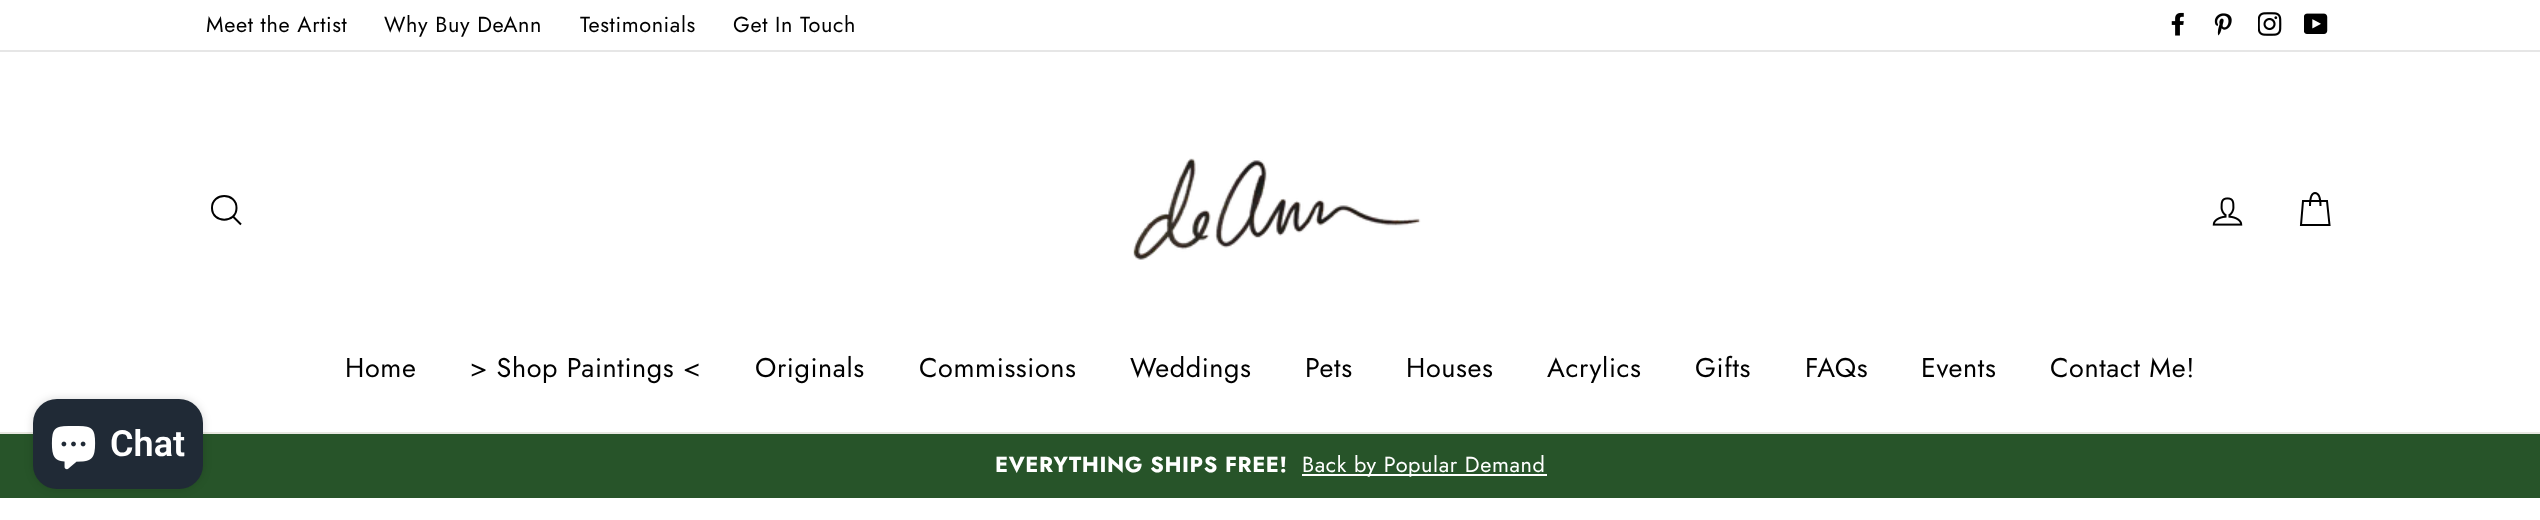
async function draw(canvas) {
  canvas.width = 2540
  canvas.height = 520
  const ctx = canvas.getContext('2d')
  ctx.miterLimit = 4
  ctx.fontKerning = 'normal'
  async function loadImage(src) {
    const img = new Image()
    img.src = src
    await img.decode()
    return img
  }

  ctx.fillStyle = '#fff'
  ctx.fillRect(0, 0, 2540, 520)
  ctx.fillStyle = '#e8e8e1'
  ctx.fillRect(0, 432, 2540, 2)
  ctx.fillStyle = '#275429'
  ctx.fillRect(0, 434, 2540, 64)
  ctx.fillStyle = '#00000026'
  ctx.filter = 'blur(4px)'
  ctx.beginPath()
  ctx.roundRect(33, 399, 170, 90, 24)
  ctx.fill()
  ctx.filter = 'none'
  ctx.fillStyle = '#202a36'
  ctx.beginPath()
  ctx.roundRect(33, 399, 170, 90, 24)
  ctx.fill()
  ctx.drawImage(await loadImage('image0.png'), 51, 426, 45, 44)
  ctx.font = '600 36px Roboto'
  ctx.fillStyle = '#fff'
  ctx.fillText('Chat', 110, 456)
  ctx.letterSpacing = '0.6px'
  ctx.font = '21.7px Jost'
  ctx.fillStyle = '#000'
  ctx.fillText('Meet the Artist', 206, 32)
  ctx.fillText('Why Buy DeAnn', 384, 32)
  ctx.fillText('Testimonials', 580, 32)
  ctx.fillText('Get In Touch', 733, 32)
  ctx.drawImage(await loadImage('image1.png'), 2171, 12, 13, 24)
  ctx.drawImage(await loadImage('image2.png'), 2214, 13, 18, 23)
  ctx.drawImage(await loadImage('image3.png'), 2258, 12, 24, 24)
  ctx.drawImage(await loadImage('image4.png'), 2304, 13, 24, 21)
  ctx.fillStyle = '#e6e6e6'
  ctx.fillRect(0, 50, 2540, 2)
  ctx.beginPath()
  ctx.moveTo(236.5, 208)
  ctx.bezierCurveTo(236.5, 223.5, 212, 223.5, 212, 208)
  ctx.bezierCurveTo(212, 192, 236.5, 192, 236.5, 208)
  ctx.closePath()
  ctx.moveTo(241, 224.5)
  ctx.lineTo(233, 216.5)
  ctx.strokeStyle = '#000'
  ctx.lineWidth = 2
  ctx.stroke()
  ctx.drawImage(await loadImage('image5.png'), 1133, 158, 288, 102)
  ctx.drawImage(await loadImage('image6.png'), 2212, 197, 31, 29)
  ctx.beginPath()
  ctx.moveTo(2310, 206)
  ctx.bezierCurveTo(2310, 195.5, 2312, 193, 2315, 193)
  ctx.bezierCurveTo(2318, 193, 2320.5, 195.5, 2320.5, 206)
  ctx.moveTo(2303, 201)
  ctx.lineTo(2327, 201)
  ctx.lineTo(2329.5, 225)
  ctx.lineTo(2301, 225)
  ctx.closePath()
  ctx.stroke()
  ctx.font = '27px Jost'
  ctx.fillStyle = '#000'
  ctx.fillText('Home', 345, 377)
  ctx.fillText('> Shop Paintings <', 470, 377)
  ctx.fillText('Originals', 755, 377)
  ctx.fillText('Commissions', 919, 377)
  ctx.fillText('Weddings', 1130, 377)
  ctx.fillText('Pets', 1305, 377)
  ctx.fillText('Houses', 1406, 377)
  ctx.fillText('Acrylics', 1547, 377)
  ctx.fillText('Gifts', 1695, 377)
  ctx.fillText('FAQs', 1805, 377)
  ctx.fillText('Events', 1921, 377)
  ctx.fillText('Contact Me!', 2050, 377)
  ctx.font = 'bold 21.7px Jost'
  ctx.fillStyle = '#fff'
  ctx.fillText('EVERYTHING SHIPS FREE!', 995, 472)
  ctx.fillRect(1302, 474, 245, 2)
  ctx.font = '21.7px Jost'
  ctx.fillText('Back by Popular Demand', 1302, 472)
}

draw(document.querySelector('canvas'))
